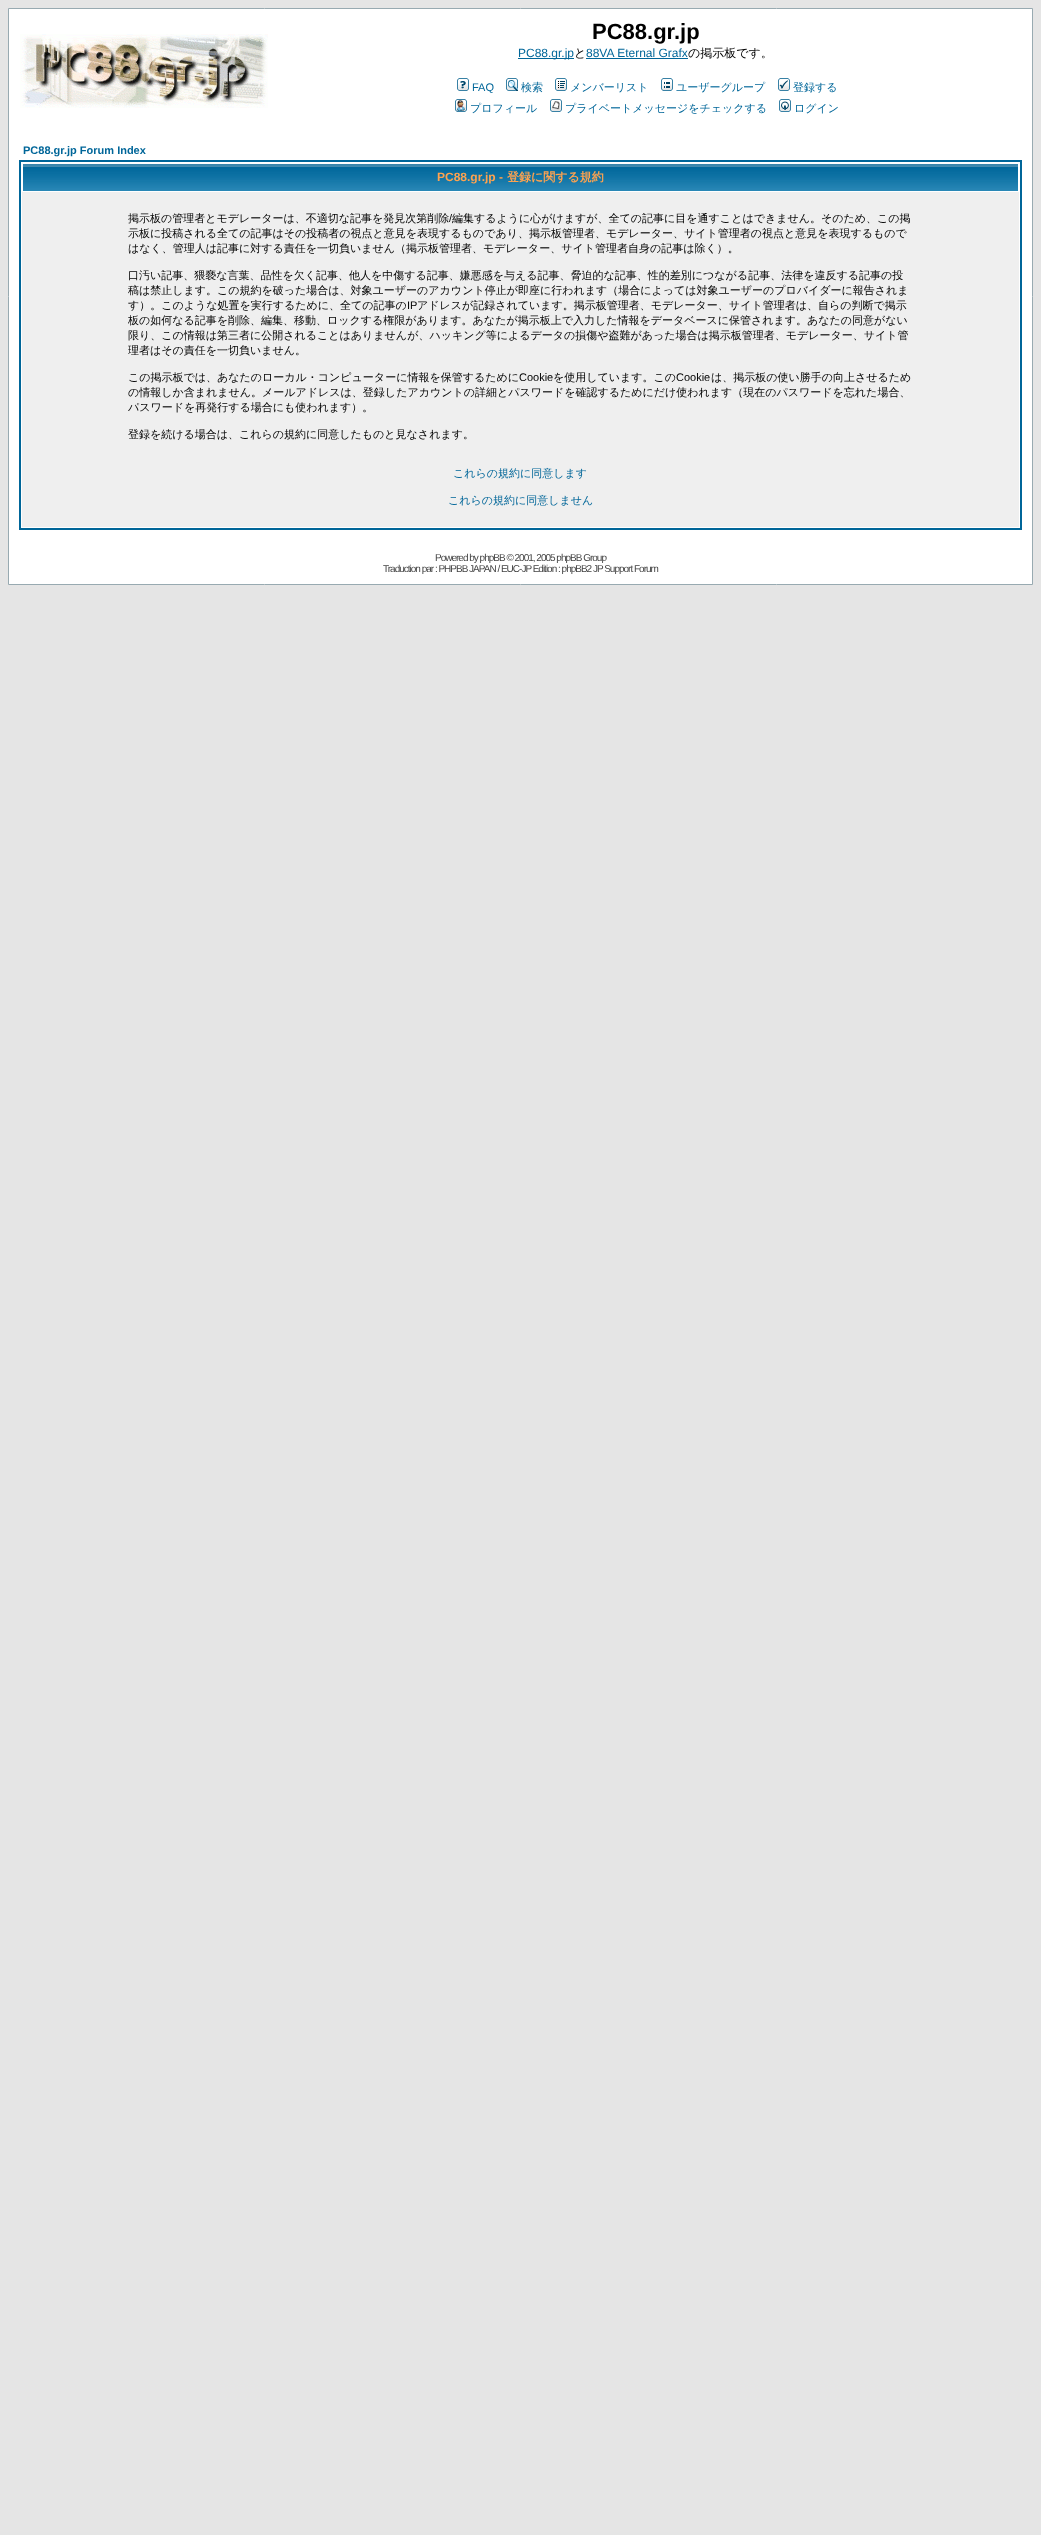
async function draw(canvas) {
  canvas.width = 1041
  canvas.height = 2535
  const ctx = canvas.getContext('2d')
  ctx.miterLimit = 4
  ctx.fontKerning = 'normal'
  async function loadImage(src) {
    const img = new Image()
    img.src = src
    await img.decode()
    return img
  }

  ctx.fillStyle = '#e5e5e5'
  ctx.fillRect(0, 0, 1041, 2535)
  ctx.fillStyle = '#fff'
  ctx.beginPath()
  ctx.rect(8.5, 8.5, 1024, 576)
  ctx.fill()
  ctx.strokeStyle = '#98aab1'
  ctx.stroke()
  ctx.drawImage(await loadImage('image0.png'), 20, 34, 248, 74)
  ctx.font = 'bold 22px Liberation Sans'
  ctx.fillStyle = '#000'
  ctx.fillText('PC88.gr.jp', 592, 39)
  ctx.fillStyle = '#069'
  ctx.fillRect(518, 58, 56, 1)
  ctx.font = '12px Liberation Sans'
  ctx.fillText('PC88.gr.jp', 518, 57)
  ctx.font = '500 12px WenQuanYi Zen Hei'
  ctx.fillStyle = '#000'
  ctx.fillText('と', 574, 57)
  ctx.font = '12px Liberation Sans'
  ctx.fillStyle = '#069'
  ctx.fillText('88VA Eternal Grafx', 586, 57)
  ctx.font = '500 12px WenQuanYi Zen Hei'
  ctx.fillStyle = '#000'
  ctx.fillText('の掲示板です。', 688, 57)
  ctx.fillStyle = '#069'
  ctx.fillRect(586, 58, 102, 1)
  ctx.drawImage(await loadImage('image1.png'), 457, 78, 12, 13)
  ctx.font = '11px Liberation Sans'
  ctx.fillText('FAQ', 472, 91)
  ctx.drawImage(await loadImage('image2.png'), 506, 78, 12, 13)
  ctx.font = '500 11px WenQuanYi Zen Hei'
  ctx.fillText('検索', 521, 91)
  ctx.drawImage(await loadImage('image3.png'), 555, 78, 12, 13)
  ctx.fillText('メンバーリスト', 570, 91)
  ctx.drawImage(await loadImage('image4.png'), 661, 78, 12, 13)
  ctx.fillText('ユーザーグループ', 676, 91)
  ctx.drawImage(await loadImage('image5.png'), 778, 78, 12, 13)
  ctx.fillText('登録する', 793, 91)
  ctx.drawImage(await loadImage('image6.png'), 455, 99, 12, 13)
  ctx.fillText('プロフィール', 470, 112)
  ctx.drawImage(await loadImage('image7.png'), 550, 99, 12, 13)
  ctx.fillText('プライベートメッセージをチェックする', 565, 112)
  ctx.drawImage(await loadImage('image8.png'), 779, 99, 12, 13)
  ctx.fillText('ログイン', 794, 112)
  ctx.font = 'bold 11px Liberation Sans'
  ctx.fillText('PC88.gr.jp Forum Index', 23, 154)
  ctx.strokeStyle = '#069'
  ctx.lineWidth = 2
  ctx.strokeRect(20, 161, 1001, 368)
  ctx.drawImage(await loadImage('image9.png'), 23, 164, 995, 27)
  ctx.font = 'bold 12px Liberation Sans'
  ctx.fillStyle = '#ffa34f'
  ctx.fillText('PC88.gr.jp -', 437, 181)
  ctx.font = 'bold 12px WenQuanYi Zen Hei'
  ctx.fillText('登録に関する規約', 507, 181)
  ctx.fillStyle = '#efefef'
  ctx.fillRect(22, 192, 997, 335)
  ctx.font = '500 11px WenQuanYi Zen Hei'
  ctx.fillStyle = '#000'
  ctx.fillText('掲示板の管理者とモデレーターは、不適切な記事を発見次第削除', 128, 222)
  ctx.font = '11px Liberation Sans'
  ctx.fillText('/', 449, 222)
  ctx.font = '500 11px WenQuanYi Zen Hei'
  ctx.fillText('編集するように心がけますが、全ての記事に目を通すことはできません。そのため、この掲', 452, 222)
  ctx.fillText('示板に投稿される全ての記事はその投稿者の視点と意見を表現するものであり、掲示板管理者、モデレーター、サイト管理者の視点と意見を表現するもので', 128, 237)
  ctx.fillText('はなく、管理人は記事に対する責任を一切負いません（掲示板管理者、モデレーター、サイト管理者自身の記事は除く）。', 128, 252)
  ctx.fillText('口汚い記事、猥褻な言葉、品性を欠く記事、他人を中傷する記事、嫌悪感を与える記事、脅迫的な記事、性的差別につながる記事、法律を違反する記事の投', 128, 279)
  ctx.fillText('稿は禁止します。この規約を破った場合は、対象ユーザーのアカウント停止が即座に行われます（場合によっては対象ユーザーのプロバイダーに報告されま', 128, 294)
  ctx.fillText('す）。このような処置を実行するために、全ての記事の', 128, 309)
  ctx.font = '11px Liberation Sans'
  ctx.fillText('IP', 407, 309)
  ctx.font = '500 11px WenQuanYi Zen Hei'
  ctx.fillText('アドレスが記録されています。掲示板管理者、モデレーター、サイト管理者は、自らの判断で掲示', 417, 309)
  ctx.fillText('板の如何なる記事を削除、編集、移動、ロックする権限があります。あなたが掲示板上で入力した情報をデータベースに保管されます。あなたの同意がない', 128, 324)
  ctx.fillText('限り、この情報は第三者に公開されることはありませんが、ハッキング等によるデータの損傷や盗難があった場合は掲示板管理者、モデレーター、サイト管', 128, 339)
  ctx.fillText('理者はその責任を一切負いません。', 128, 354)
  ctx.fillText('この掲示板では、あなたのローカル・コンピューターに情報を保管するために', 128, 381)
  ctx.font = '11px Liberation Sans'
  ctx.fillText('Cookie', 519, 381)
  ctx.font = '500 11px WenQuanYi Zen Hei'
  ctx.fillText('を使用しています。この', 553, 381)
  ctx.font = '11px Liberation Sans'
  ctx.fillText('Cookie', 676, 381)
  ctx.font = '500 11px WenQuanYi Zen Hei'
  ctx.fillText('は、掲示板の使い勝手の向上させるため', 711, 381)
  ctx.fillText('の情報しか含まれません。メールアドレスは、登録したアカウントの詳細とパスワードを確認するためにだけ使われます（現在のパスワードを忘れた場合、', 128, 396)
  ctx.fillText('パスワードを再発行する場合にも使われます）。', 128, 411)
  ctx.fillText('登録を続ける場合は、これらの規約に同意したものと見なされます。', 128, 438)
  ctx.fillStyle = '#069'
  ctx.fillText('これらの規約に同意します', 453, 477)
  ctx.fillText('これらの規約に同意しません', 448, 504)
  ctx.letterSpacing = '-1px'
  ctx.font = '10px Liberation Sans'
  ctx.fillStyle = '#444'
  ctx.fillText('Powered by phpBB © 2001, 2005 phpBB Group', 435, 561)
  ctx.fillText('Traduction par : PHPBB JAPAN / EUC-JP Edition : phpBB2 JP Support Forum', 383, 572)
}

draw(document.querySelector('canvas'))
